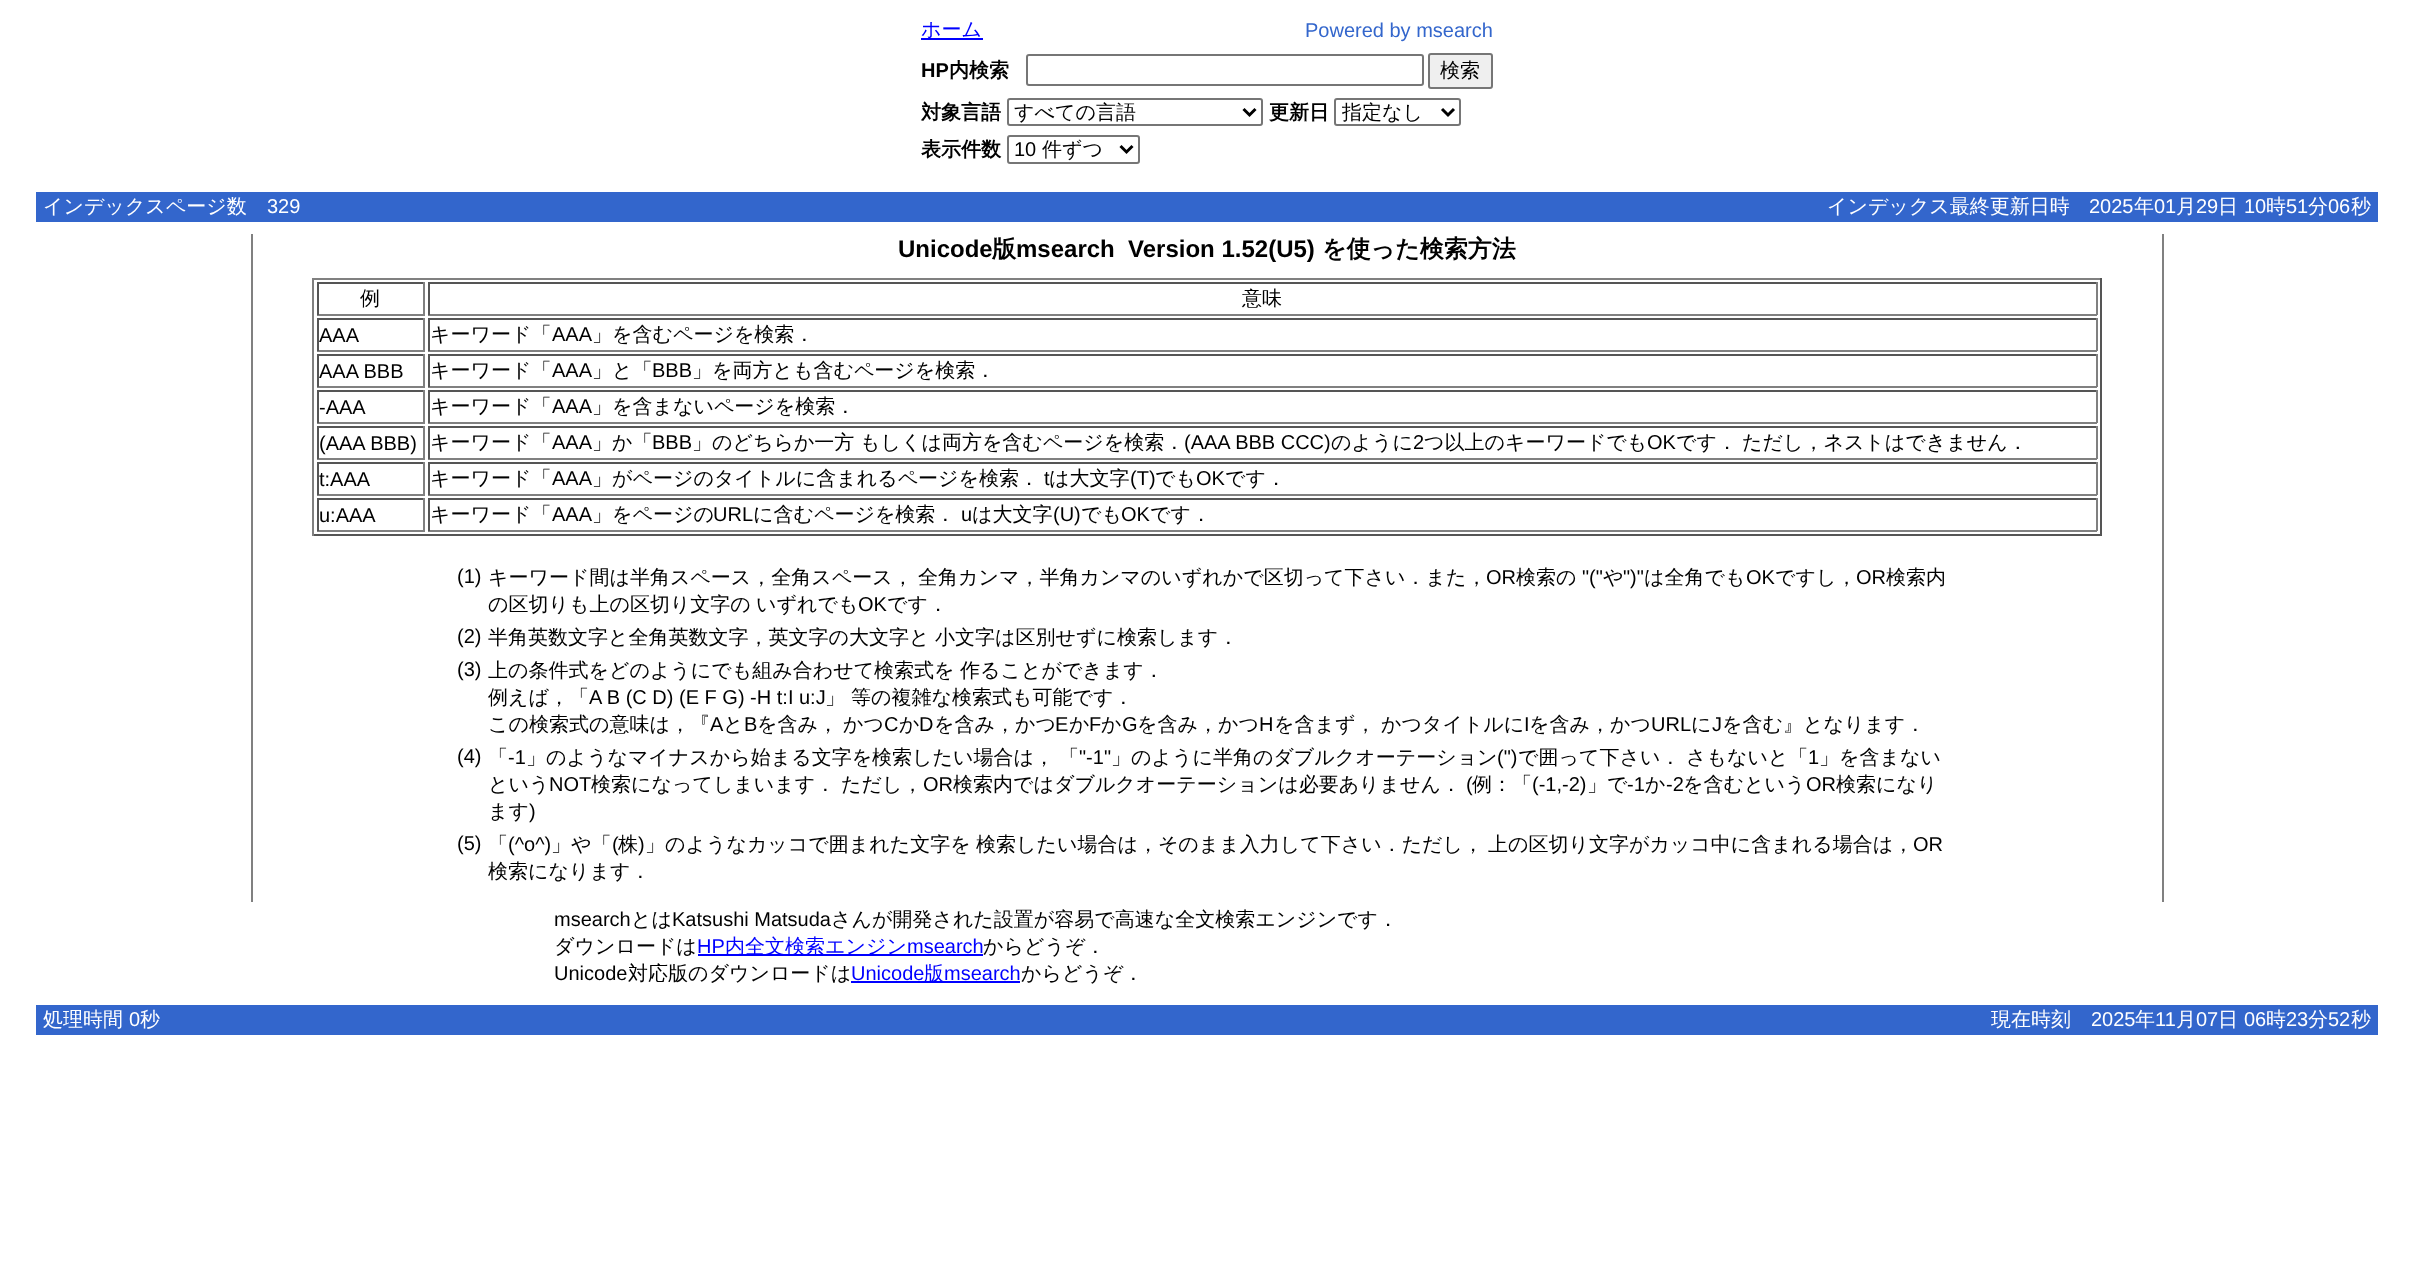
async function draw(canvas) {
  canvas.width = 2413
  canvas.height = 1264
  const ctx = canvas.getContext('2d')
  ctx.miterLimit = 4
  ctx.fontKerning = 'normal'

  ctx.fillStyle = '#fff'
  ctx.fillRect(0, 0, 2413, 1264)
  ctx.fillStyle = '#00f'
  ctx.fillRect(921, 38, 62, 2)
  ctx.font = '500 20px WenQuanYi Zen Hei'
  ctx.fillText('ホーム', 921, 36)
  ctx.font = '20px Liberation Sans'
  ctx.fillStyle = '#36c'
  ctx.fillText('Powered by msearch', 1305, 37)
  ctx.font = 'bold 20px Liberation Sans'
  ctx.fillStyle = '#000'
  ctx.fillText('HP', 921, 77)
  ctx.font = 'bold 20px WenQuanYi Zen Hei'
  ctx.fillText('内検索', 949, 77)
  ctx.beginPath()
  ctx.roundRect(1027, 55, 396, 30, 2)
  ctx.strokeStyle = '#767676'
  ctx.lineWidth = 2
  ctx.stroke()
  ctx.fillStyle = '#efefef'
  ctx.beginPath()
  ctx.roundRect(1429, 54, 63, 34, 2)
  ctx.fill()
  ctx.stroke()
  ctx.font = '500 20px WenQuanYi Zen Hei'
  ctx.fillStyle = '#000'
  ctx.fillText('検索', 1440, 77)
  ctx.font = 'bold 20px WenQuanYi Zen Hei'
  ctx.fillText('対象言語', 921, 119)
  ctx.beginPath()
  ctx.roundRect(1008, 99, 254, 26, 2)
  ctx.stroke()
  ctx.beginPath()
  ctx.moveTo(1243.5, 109)
  ctx.lineTo(1249.5, 115)
  ctx.lineTo(1255.5, 109)
  ctx.strokeStyle = '#000'
  ctx.lineWidth = 3
  ctx.stroke()
  ctx.font = '500 20px WenQuanYi Zen Hei'
  ctx.fillText('すべての言語', 1014, 119)
  ctx.font = 'bold 20px WenQuanYi Zen Hei'
  ctx.fillText('更新日', 1269, 119)
  ctx.beginPath()
  ctx.roundRect(1335, 99, 125, 26, 2)
  ctx.strokeStyle = '#767676'
  ctx.lineWidth = 2
  ctx.stroke()
  ctx.beginPath()
  ctx.moveTo(1442, 109)
  ctx.lineTo(1448, 115)
  ctx.lineTo(1454, 109)
  ctx.strokeStyle = '#000'
  ctx.lineWidth = 3
  ctx.stroke()
  ctx.font = '500 20px WenQuanYi Zen Hei'
  ctx.fillText('指定なし', 1342, 119)
  ctx.font = 'bold 20px WenQuanYi Zen Hei'
  ctx.fillText('表示件数', 921, 156)
  ctx.beginPath()
  ctx.roundRect(1008, 136, 131, 27, 2)
  ctx.strokeStyle = '#767676'
  ctx.lineWidth = 2
  ctx.stroke()
  ctx.beginPath()
  ctx.moveTo(1120.5, 146)
  ctx.lineTo(1126.5, 152)
  ctx.lineTo(1132.5, 146)
  ctx.strokeStyle = '#000'
  ctx.lineWidth = 3
  ctx.stroke()
  ctx.font = '20px Liberation Sans'
  ctx.fillText('10', 1014, 156)
  ctx.font = '500 20px WenQuanYi Zen Hei'
  ctx.fillText('件ずつ', 1042, 156)
  ctx.fillStyle = '#36c'
  ctx.fillRect(36, 192, 2342, 30)
  ctx.fillStyle = '#fff'
  ctx.fillText('インデックスページ数', 43, 213)
  ctx.font = '20px Liberation Sans'
  ctx.fillText('329', 267, 213)
  ctx.font = '500 20px WenQuanYi Zen Hei'
  ctx.fillText('インデックス最終更新日時', 1827, 213)
  ctx.font = '20px Liberation Sans'
  ctx.fillText('2025', 2089, 213)
  ctx.font = '500 20px WenQuanYi Zen Hei'
  ctx.fillText('年', 2134, 213)
  ctx.font = '20px Liberation Sans'
  ctx.fillText('01', 2154, 213)
  ctx.font = '500 20px WenQuanYi Zen Hei'
  ctx.fillText('月', 2176, 213)
  ctx.font = '20px Liberation Sans'
  ctx.fillText('29', 2196, 213)
  ctx.font = '500 20px WenQuanYi Zen Hei'
  ctx.fillText('日', 2218, 213)
  ctx.font = '20px Liberation Sans'
  ctx.fillText('10', 2244, 213)
  ctx.font = '500 20px WenQuanYi Zen Hei'
  ctx.fillText('時', 2266, 213)
  ctx.font = '20px Liberation Sans'
  ctx.fillText('51', 2286, 213)
  ctx.font = '500 20px WenQuanYi Zen Hei'
  ctx.fillText('分', 2308, 213)
  ctx.font = '20px Liberation Sans'
  ctx.fillText('06', 2328, 213)
  ctx.font = '500 20px WenQuanYi Zen Hei'
  ctx.fillText('秒', 2351, 213)
  ctx.fillStyle = '#808080'
  ctx.fillRect(2162, 234, 2, 668)
  ctx.fillRect(251, 234, 2, 668)
  ctx.font = 'bold 24px Liberation Sans'
  ctx.fillStyle = '#000'
  ctx.fillText('Unicode', 898, 257)
  ctx.font = 'bold 24px WenQuanYi Zen Hei'
  ctx.fillText('版', 992, 257)
  ctx.font = 'bold 24px Liberation Sans'
  ctx.fillText('msearch  Version 1.52(U5)', 1016, 257)
  ctx.font = 'bold 24px WenQuanYi Zen Hei'
  ctx.fillText('を使った検索方法', 1322, 257)
  ctx.fillStyle = '#808080'
  ctx.fillRect(312, 278, 1790, 2)
  ctx.fillStyle = '#555'
  ctx.fillRect(2100, 278, 2, 258)
  ctx.fillRect(312, 534, 1790, 2)
  ctx.fillStyle = '#808080'
  ctx.fillRect(312, 278, 2, 258)
  ctx.fillStyle = '#555'
  ctx.fillRect(317, 282, 108, 2)
  ctx.fillStyle = '#808080'
  ctx.fillRect(423, 282, 2, 33)
  ctx.fillRect(317, 314, 108, 2)
  ctx.fillStyle = '#555'
  ctx.fillRect(317, 282, 2, 33)
  ctx.font = '500 20px WenQuanYi Zen Hei'
  ctx.fillStyle = '#000'
  ctx.fillText('例', 360, 305)
  ctx.fillStyle = '#555'
  ctx.fillRect(428, 282, 1669, 2)
  ctx.fillStyle = '#808080'
  ctx.fillRect(2096, 282, 2, 33)
  ctx.fillRect(428, 314, 1669, 2)
  ctx.fillStyle = '#555'
  ctx.fillRect(428, 282, 2, 33)
  ctx.fillStyle = '#000'
  ctx.fillText('意味', 1242, 305)
  ctx.fillStyle = '#555'
  ctx.fillRect(317, 318, 108, 2)
  ctx.fillStyle = '#808080'
  ctx.fillRect(423, 318, 2, 33)
  ctx.fillRect(317, 350, 108, 2)
  ctx.fillStyle = '#555'
  ctx.fillRect(317, 318, 2, 33)
  ctx.font = '20px Liberation Sans'
  ctx.fillStyle = '#000'
  ctx.fillText('AAA', 319, 342)
  ctx.fillStyle = '#555'
  ctx.fillRect(428, 318, 1669, 2)
  ctx.fillStyle = '#808080'
  ctx.fillRect(2096, 318, 2, 33)
  ctx.fillRect(428, 350, 1669, 2)
  ctx.fillStyle = '#555'
  ctx.fillRect(428, 318, 2, 33)
  ctx.font = '500 20px WenQuanYi Zen Hei'
  ctx.fillStyle = '#000'
  ctx.fillText('キーワード「', 430, 341)
  ctx.font = '20px Liberation Sans'
  ctx.fillText('AAA', 552, 341)
  ctx.font = '500 20px WenQuanYi Zen Hei'
  ctx.fillText('」を含むページを検索．', 592, 341)
  ctx.fillStyle = '#555'
  ctx.fillRect(317, 354, 108, 2)
  ctx.fillStyle = '#808080'
  ctx.fillRect(423, 354, 2, 33)
  ctx.fillRect(317, 386, 108, 2)
  ctx.fillStyle = '#555'
  ctx.fillRect(317, 354, 2, 33)
  ctx.font = '20px Liberation Sans'
  ctx.fillStyle = '#000'
  ctx.fillText('AAA BBB', 319, 378)
  ctx.fillStyle = '#555'
  ctx.fillRect(428, 354, 1669, 2)
  ctx.fillStyle = '#808080'
  ctx.fillRect(2096, 354, 2, 33)
  ctx.fillRect(428, 386, 1669, 2)
  ctx.fillStyle = '#555'
  ctx.fillRect(428, 354, 2, 33)
  ctx.font = '500 20px WenQuanYi Zen Hei'
  ctx.fillStyle = '#000'
  ctx.fillText('キーワード「', 430, 377)
  ctx.font = '20px Liberation Sans'
  ctx.fillText('AAA', 552, 377)
  ctx.font = '500 20px WenQuanYi Zen Hei'
  ctx.fillText('」と「', 592, 377)
  ctx.font = '20px Liberation Sans'
  ctx.fillText('BBB', 652, 377)
  ctx.font = '500 20px WenQuanYi Zen Hei'
  ctx.fillText('」を両方とも含むページを検索．', 692, 377)
  ctx.fillStyle = '#555'
  ctx.fillRect(317, 390, 108, 2)
  ctx.fillStyle = '#808080'
  ctx.fillRect(423, 390, 2, 33)
  ctx.fillRect(317, 422, 108, 2)
  ctx.fillStyle = '#555'
  ctx.fillRect(317, 390, 2, 33)
  ctx.font = '20px Liberation Sans'
  ctx.fillStyle = '#000'
  ctx.fillText('-AAA', 319, 414)
  ctx.fillStyle = '#555'
  ctx.fillRect(428, 390, 1669, 2)
  ctx.fillStyle = '#808080'
  ctx.fillRect(2096, 390, 2, 33)
  ctx.fillRect(428, 422, 1669, 2)
  ctx.fillStyle = '#555'
  ctx.fillRect(428, 390, 2, 33)
  ctx.font = '500 20px WenQuanYi Zen Hei'
  ctx.fillStyle = '#000'
  ctx.fillText('キーワード「', 430, 413)
  ctx.font = '20px Liberation Sans'
  ctx.fillText('AAA', 552, 413)
  ctx.font = '500 20px WenQuanYi Zen Hei'
  ctx.fillText('」を含まないページを検索．', 592, 413)
  ctx.fillStyle = '#555'
  ctx.fillRect(317, 426, 108, 2)
  ctx.fillStyle = '#808080'
  ctx.fillRect(423, 426, 2, 33)
  ctx.fillRect(317, 458, 108, 2)
  ctx.fillStyle = '#555'
  ctx.fillRect(317, 426, 2, 33)
  ctx.font = '20px Liberation Sans'
  ctx.fillStyle = '#000'
  ctx.fillText('(AAA BBB)', 319, 450)
  ctx.fillStyle = '#555'
  ctx.fillRect(428, 426, 1669, 2)
  ctx.fillStyle = '#808080'
  ctx.fillRect(2096, 426, 2, 33)
  ctx.fillRect(428, 458, 1669, 2)
  ctx.fillStyle = '#555'
  ctx.fillRect(428, 426, 2, 33)
  ctx.font = '500 20px WenQuanYi Zen Hei'
  ctx.fillStyle = '#000'
  ctx.fillText('キーワード「', 430, 449)
  ctx.font = '20px Liberation Sans'
  ctx.fillText('AAA', 552, 449)
  ctx.font = '500 20px WenQuanYi Zen Hei'
  ctx.fillText('」か「', 592, 449)
  ctx.font = '20px Liberation Sans'
  ctx.fillText('BBB', 652, 449)
  ctx.font = '500 20px WenQuanYi Zen Hei'
  ctx.fillText('」のどちらか一方', 692, 449)
  ctx.fillText('もしくは両方を含むページを検索．', 860, 449)
  ctx.font = '20px Liberation Sans'
  ctx.fillText('(AAA BBB CCC)', 1184, 449)
  ctx.font = '500 20px WenQuanYi Zen Hei'
  ctx.fillText('のように', 1331, 449)
  ctx.font = '20px Liberation Sans'
  ctx.fillText('2', 1413, 449)
  ctx.font = '500 20px WenQuanYi Zen Hei'
  ctx.fillText('つ以上のキーワードでも', 1424, 449)
  ctx.font = '20px Liberation Sans'
  ctx.fillText('OK', 1647, 449)
  ctx.font = '500 20px WenQuanYi Zen Hei'
  ctx.fillText('です．', 1676, 449)
  ctx.fillText('ただし，ネストはできません．', 1742, 449)
  ctx.fillStyle = '#555'
  ctx.fillRect(317, 462, 108, 2)
  ctx.fillStyle = '#808080'
  ctx.fillRect(423, 462, 2, 33)
  ctx.fillRect(317, 494, 108, 2)
  ctx.fillStyle = '#555'
  ctx.fillRect(317, 462, 2, 33)
  ctx.font = '20px Liberation Sans'
  ctx.fillStyle = '#000'
  ctx.fillText('t:AAA', 319, 486)
  ctx.fillStyle = '#555'
  ctx.fillRect(428, 462, 1669, 2)
  ctx.fillStyle = '#808080'
  ctx.fillRect(2096, 462, 2, 33)
  ctx.fillRect(428, 494, 1669, 2)
  ctx.fillStyle = '#555'
  ctx.fillRect(428, 462, 2, 33)
  ctx.font = '500 20px WenQuanYi Zen Hei'
  ctx.fillStyle = '#000'
  ctx.fillText('キーワード「', 430, 485)
  ctx.font = '20px Liberation Sans'
  ctx.fillText('AAA', 552, 485)
  ctx.font = '500 20px WenQuanYi Zen Hei'
  ctx.fillText('」がページのタイトルに含まれるページを検索．', 592, 485)
  ctx.font = '20px Liberation Sans'
  ctx.fillText('t', 1044, 485)
  ctx.font = '500 20px WenQuanYi Zen Hei'
  ctx.fillText('は大文字', 1049, 485)
  ctx.font = '20px Liberation Sans'
  ctx.fillText('(T)', 1130, 485)
  ctx.font = '500 20px WenQuanYi Zen Hei'
  ctx.fillText('でも', 1155, 485)
  ctx.font = '20px Liberation Sans'
  ctx.fillText('OK', 1196, 485)
  ctx.font = '500 20px WenQuanYi Zen Hei'
  ctx.fillText('です．', 1225, 485)
  ctx.fillStyle = '#555'
  ctx.fillRect(317, 498, 108, 2)
  ctx.fillStyle = '#808080'
  ctx.fillRect(423, 498, 2, 33)
  ctx.fillRect(317, 530, 108, 2)
  ctx.fillStyle = '#555'
  ctx.fillRect(317, 498, 2, 33)
  ctx.font = '20px Liberation Sans'
  ctx.fillStyle = '#000'
  ctx.fillText('u:AAA', 319, 522)
  ctx.fillStyle = '#555'
  ctx.fillRect(428, 498, 1669, 2)
  ctx.fillStyle = '#808080'
  ctx.fillRect(2096, 498, 2, 33)
  ctx.fillRect(428, 530, 1669, 2)
  ctx.fillStyle = '#555'
  ctx.fillRect(428, 498, 2, 33)
  ctx.font = '500 20px WenQuanYi Zen Hei'
  ctx.fillStyle = '#000'
  ctx.fillText('キーワード「', 430, 521)
  ctx.font = '20px Liberation Sans'
  ctx.fillText('AAA', 552, 521)
  ctx.font = '500 20px WenQuanYi Zen Hei'
  ctx.fillText('」をページの', 592, 521)
  ctx.font = '20px Liberation Sans'
  ctx.fillText('URL', 713, 521)
  ctx.font = '500 20px WenQuanYi Zen Hei'
  ctx.fillText('に含むページを検索．', 753, 521)
  ctx.font = '20px Liberation Sans'
  ctx.fillText('u', 961, 521)
  ctx.font = '500 20px WenQuanYi Zen Hei'
  ctx.fillText('は大文字', 972, 521)
  ctx.font = '20px Liberation Sans'
  ctx.fillText('(U)', 1053, 521)
  ctx.font = '500 20px WenQuanYi Zen Hei'
  ctx.fillText('でも', 1081, 521)
  ctx.font = '20px Liberation Sans'
  ctx.fillText('OK', 1121, 521)
  ctx.font = '500 20px WenQuanYi Zen Hei'
  ctx.fillText('です．', 1150, 521)
  ctx.font = '20px Liberation Sans'
  ctx.fillText('(1)', 457, 583)
  ctx.font = '500 20px WenQuanYi Zen Hei'
  ctx.fillText('キーワード間は半角スペース，全角スペース，', 488, 584)
  ctx.fillText('全角カンマ，半角カンマのいずれかで区切って下さい．また，', 918, 584)
  ctx.font = '20px Liberation Sans'
  ctx.fillText('OR', 1486, 584)
  ctx.font = '500 20px WenQuanYi Zen Hei'
  ctx.fillText('検索の', 1516, 584)
  ctx.font = '20px Liberation Sans'
  ctx.fillText('"("', 1582, 584)
  ctx.font = '500 20px WenQuanYi Zen Hei'
  ctx.fillText('や', 1603, 584)
  ctx.font = '20px Liberation Sans'
  ctx.fillText('")"', 1623, 584)
  ctx.font = '500 20px WenQuanYi Zen Hei'
  ctx.fillText('は全角でも', 1644, 584)
  ctx.font = '20px Liberation Sans'
  ctx.fillText('OK', 1746, 584)
  ctx.font = '500 20px WenQuanYi Zen Hei'
  ctx.fillText('ですし，', 1775, 584)
  ctx.font = '20px Liberation Sans'
  ctx.fillText('OR', 1856, 584)
  ctx.font = '500 20px WenQuanYi Zen Hei'
  ctx.fillText('検索内', 1886, 584)
  ctx.fillText('の区切りも上の区切り文字の', 488, 611)
  ctx.fillText('いずれでも', 756, 611)
  ctx.font = '20px Liberation Sans'
  ctx.fillText('OK', 858, 611)
  ctx.font = '500 20px WenQuanYi Zen Hei'
  ctx.fillText('です．', 887, 611)
  ctx.font = '20px Liberation Sans'
  ctx.fillText('(2)', 457, 643)
  ctx.font = '500 20px WenQuanYi Zen Hei'
  ctx.fillText('半角英数文字と全角英数文字，英文字の大文字と', 488, 644)
  ctx.fillText('小文字は区別せずに検索します．', 935, 644)
  ctx.font = '20px Liberation Sans'
  ctx.fillText('(3)', 457, 676)
  ctx.font = '500 20px WenQuanYi Zen Hei'
  ctx.fillText('上の条件式をどのようにでも組み合わせて検索式を', 488, 677)
  ctx.fillText('作ることができます．', 960, 677)
  ctx.fillText('例えば，「', 488, 704)
  ctx.font = '20px Liberation Sans'
  ctx.fillText('A B (C D) (E F G) -H t:I u:J', 589, 704)
  ctx.font = '500 20px WenQuanYi Zen Hei'
  ctx.fillText('」', 825, 704)
  ctx.fillText('等の複雑な検索式も可能です．', 851, 704)
  ctx.fillText('この検索式の意味は，『', 488, 731)
  ctx.font = '20px Liberation Sans'
  ctx.fillText('A', 710, 731)
  ctx.font = '500 20px WenQuanYi Zen Hei'
  ctx.fillText('と', 723, 731)
  ctx.font = '20px Liberation Sans'
  ctx.fillText('B', 744, 731)
  ctx.font = '500 20px WenQuanYi Zen Hei'
  ctx.fillText('を含み，', 757, 731)
  ctx.fillText('かつ', 843, 731)
  ctx.font = '20px Liberation Sans'
  ctx.fillText('C', 884, 731)
  ctx.font = '500 20px WenQuanYi Zen Hei'
  ctx.fillText('か', 899, 731)
  ctx.font = '20px Liberation Sans'
  ctx.fillText('D', 919, 731)
  ctx.font = '500 20px WenQuanYi Zen Hei'
  ctx.fillText('を含み，かつ', 934, 731)
  ctx.font = '20px Liberation Sans'
  ctx.fillText('E', 1055, 731)
  ctx.font = '500 20px WenQuanYi Zen Hei'
  ctx.fillText('か', 1069, 731)
  ctx.font = '20px Liberation Sans'
  ctx.fillText('F', 1089, 731)
  ctx.font = '500 20px WenQuanYi Zen Hei'
  ctx.fillText('か', 1101, 731)
  ctx.font = '20px Liberation Sans'
  ctx.fillText('G', 1122, 731)
  ctx.font = '500 20px WenQuanYi Zen Hei'
  ctx.fillText('を含み，かつ', 1137, 731)
  ctx.font = '20px Liberation Sans'
  ctx.fillText('H', 1259, 731)
  ctx.font = '500 20px WenQuanYi Zen Hei'
  ctx.fillText('を含まず，', 1274, 731)
  ctx.fillText('かつタイトルに', 1381, 731)
  ctx.font = '20px Liberation Sans'
  ctx.fillText('I', 1524, 731)
  ctx.font = '500 20px WenQuanYi Zen Hei'
  ctx.fillText('を含み，かつ', 1529, 731)
  ctx.font = '20px Liberation Sans'
  ctx.fillText('URL', 1651, 731)
  ctx.font = '500 20px WenQuanYi Zen Hei'
  ctx.fillText('に', 1691, 731)
  ctx.font = '20px Liberation Sans'
  ctx.fillText('J', 1712, 731)
  ctx.font = '500 20px WenQuanYi Zen Hei'
  ctx.fillText('を含む』となります．', 1722, 731)
  ctx.font = '20px Liberation Sans'
  ctx.fillText('(4)', 457, 763)
  ctx.font = '500 20px WenQuanYi Zen Hei'
  ctx.fillText('「', 488, 764)
  ctx.font = '20px Liberation Sans'
  ctx.fillText('-1', 508, 764)
  ctx.font = '500 20px WenQuanYi Zen Hei'
  ctx.fillText('」のようなマイナスから始まる文字を検索したい場合は，', 526, 764)
  ctx.fillText('「', 1059, 764)
  ctx.font = '20px Liberation Sans'
  ctx.fillText('"-1"', 1079, 764)
  ctx.font = '500 20px WenQuanYi Zen Hei'
  ctx.fillText('」のように半角のダブルクオーテーション', 1111, 764)
  ctx.font = '20px Liberation Sans'
  ctx.fillText('(")', 1497, 764)
  ctx.font = '500 20px WenQuanYi Zen Hei'
  ctx.fillText('で囲って下さい．', 1518, 764)
  ctx.fillText('さもないと「', 1686, 764)
  ctx.font = '20px Liberation Sans'
  ctx.fillText('1', 1808, 764)
  ctx.font = '500 20px WenQuanYi Zen Hei'
  ctx.fillText('」を含まない', 1819, 764)
  ctx.fillText('という', 488, 791)
  ctx.font = '20px Liberation Sans'
  ctx.fillText('NOT', 549, 791)
  ctx.font = '500 20px WenQuanYi Zen Hei'
  ctx.fillText('検索になってしまいます．', 591, 791)
  ctx.fillText('ただし，', 841, 791)
  ctx.font = '20px Liberation Sans'
  ctx.fillText('OR', 923, 791)
  ctx.font = '500 20px WenQuanYi Zen Hei'
  ctx.fillText('検索内ではダブルクオーテーションは必要ありません．', 953, 791)
  ctx.font = '20px Liberation Sans'
  ctx.fillText('(', 1466, 791)
  ctx.font = '500 20px WenQuanYi Zen Hei'
  ctx.fillText('例：「', 1472, 791)
  ctx.font = '20px Liberation Sans'
  ctx.fillText('(-1,-2)', 1532, 791)
  ctx.font = '500 20px WenQuanYi Zen Hei'
  ctx.fillText('」で', 1587, 791)
  ctx.font = '20px Liberation Sans'
  ctx.fillText('-1', 1627, 791)
  ctx.font = '500 20px WenQuanYi Zen Hei'
  ctx.fillText('か', 1645, 791)
  ctx.font = '20px Liberation Sans'
  ctx.fillText('-2', 1666, 791)
  ctx.font = '500 20px WenQuanYi Zen Hei'
  ctx.fillText('を含むという', 1683, 791)
  ctx.font = '20px Liberation Sans'
  ctx.fillText('OR', 1806, 791)
  ctx.font = '500 20px WenQuanYi Zen Hei'
  ctx.fillText('検索になり', 1836, 791)
  ctx.fillText('ます', 488, 818)
  ctx.font = '20px Liberation Sans'
  ctx.fillText(')', 529, 818)
  ctx.fillText('(5)', 457, 850)
  ctx.font = '500 20px WenQuanYi Zen Hei'
  ctx.fillText('「', 488, 851)
  ctx.font = '20px Liberation Sans'
  ctx.fillText('(^o^)', 508, 851)
  ctx.font = '500 20px WenQuanYi Zen Hei'
  ctx.fillText('」や「', 551, 851)
  ctx.font = '20px Liberation Sans'
  ctx.fillText('(', 612, 851)
  ctx.font = '500 20px WenQuanYi Zen Hei'
  ctx.fillText('株', 618, 851)
  ctx.font = '20px Liberation Sans'
  ctx.fillText(')', 638, 851)
  ctx.font = '500 20px WenQuanYi Zen Hei'
  ctx.fillText('」のようなカッコで囲まれた文字を', 645, 851)
  ctx.fillText('検索したい場合は，そのまま入力して下さい．ただし，', 976, 851)
  ctx.fillText('上の区切り文字がカッコ中に含まれる場合は，', 1488, 851)
  ctx.font = '20px Liberation Sans'
  ctx.fillText('OR', 1913, 851)
  ctx.font = '500 20px WenQuanYi Zen Hei'
  ctx.fillText('検索になります．', 488, 878)
  ctx.font = '20px Liberation Sans'
  ctx.fillText('msearch', 554, 926)
  ctx.font = '500 20px WenQuanYi Zen Hei'
  ctx.fillText('とは', 631, 926)
  ctx.font = '20px Liberation Sans'
  ctx.fillText('Katsushi Matsuda', 672, 926)
  ctx.font = '500 20px WenQuanYi Zen Hei'
  ctx.fillText('さんが開発された設置が容易で高速な全文検索エンジンです．', 831, 926)
  ctx.fillText('ダウンロードは', 554, 953)
  ctx.font = '20px Liberation Sans'
  ctx.fillStyle = '#00f'
  ctx.fillText('HP', 697, 953)
  ctx.fillRect(698, 954, 285, 2)
  ctx.font = '500 20px WenQuanYi Zen Hei'
  ctx.fillText('内全文検索エンジン', 725, 953)
  ctx.font = '20px Liberation Sans'
  ctx.fillText('msearch', 907, 953)
  ctx.font = '500 20px WenQuanYi Zen Hei'
  ctx.fillStyle = '#000'
  ctx.fillText('からどうぞ．', 983, 953)
  ctx.font = '20px Liberation Sans'
  ctx.fillText('Unicode', 554, 980)
  ctx.font = '500 20px WenQuanYi Zen Hei'
  ctx.fillText('対応版のダウンロードは', 628, 980)
  ctx.font = '20px Liberation Sans'
  ctx.fillStyle = '#00f'
  ctx.fillText('Unicode', 851, 980)
  ctx.fillRect(851, 981, 169, 2)
  ctx.font = '500 20px WenQuanYi Zen Hei'
  ctx.fillText('版', 924, 980)
  ctx.font = '20px Liberation Sans'
  ctx.fillText('msearch', 944, 980)
  ctx.font = '500 20px WenQuanYi Zen Hei'
  ctx.fillStyle = '#000'
  ctx.fillText('からどうぞ．', 1021, 980)
  ctx.fillStyle = '#36c'
  ctx.fillRect(36, 1005, 2342, 30)
  ctx.fillStyle = '#fff'
  ctx.fillText('処理時間', 43, 1026)
  ctx.font = '20px Liberation Sans'
  ctx.fillText('0', 129, 1026)
  ctx.font = '500 20px WenQuanYi Zen Hei'
  ctx.fillText('秒', 140, 1026)
  ctx.fillText('現在時刻', 1991, 1026)
  ctx.font = '20px Liberation Sans'
  ctx.fillText('2025', 2091, 1026)
  ctx.font = '500 20px WenQuanYi Zen Hei'
  ctx.fillText('年', 2135, 1026)
  ctx.font = '20px Liberation Sans'
  ctx.fillText('11', 2155, 1026)
  ctx.font = '500 20px WenQuanYi Zen Hei'
  ctx.fillText('月', 2176, 1026)
  ctx.font = '20px Liberation Sans'
  ctx.fillText('07', 2196, 1026)
  ctx.font = '500 20px WenQuanYi Zen Hei'
  ctx.fillText('日', 2218, 1026)
  ctx.font = '20px Liberation Sans'
  ctx.fillText('06', 2244, 1026)
  ctx.font = '500 20px WenQuanYi Zen Hei'
  ctx.fillText('時', 2266, 1026)
  ctx.font = '20px Liberation Sans'
  ctx.fillText('23', 2286, 1026)
  ctx.font = '500 20px WenQuanYi Zen Hei'
  ctx.fillText('分', 2308, 1026)
  ctx.font = '20px Liberation Sans'
  ctx.fillText('52', 2328, 1026)
  ctx.font = '500 20px WenQuanYi Zen Hei'
  ctx.fillText('秒', 2351, 1026)
}

draw(document.querySelector('canvas'))
